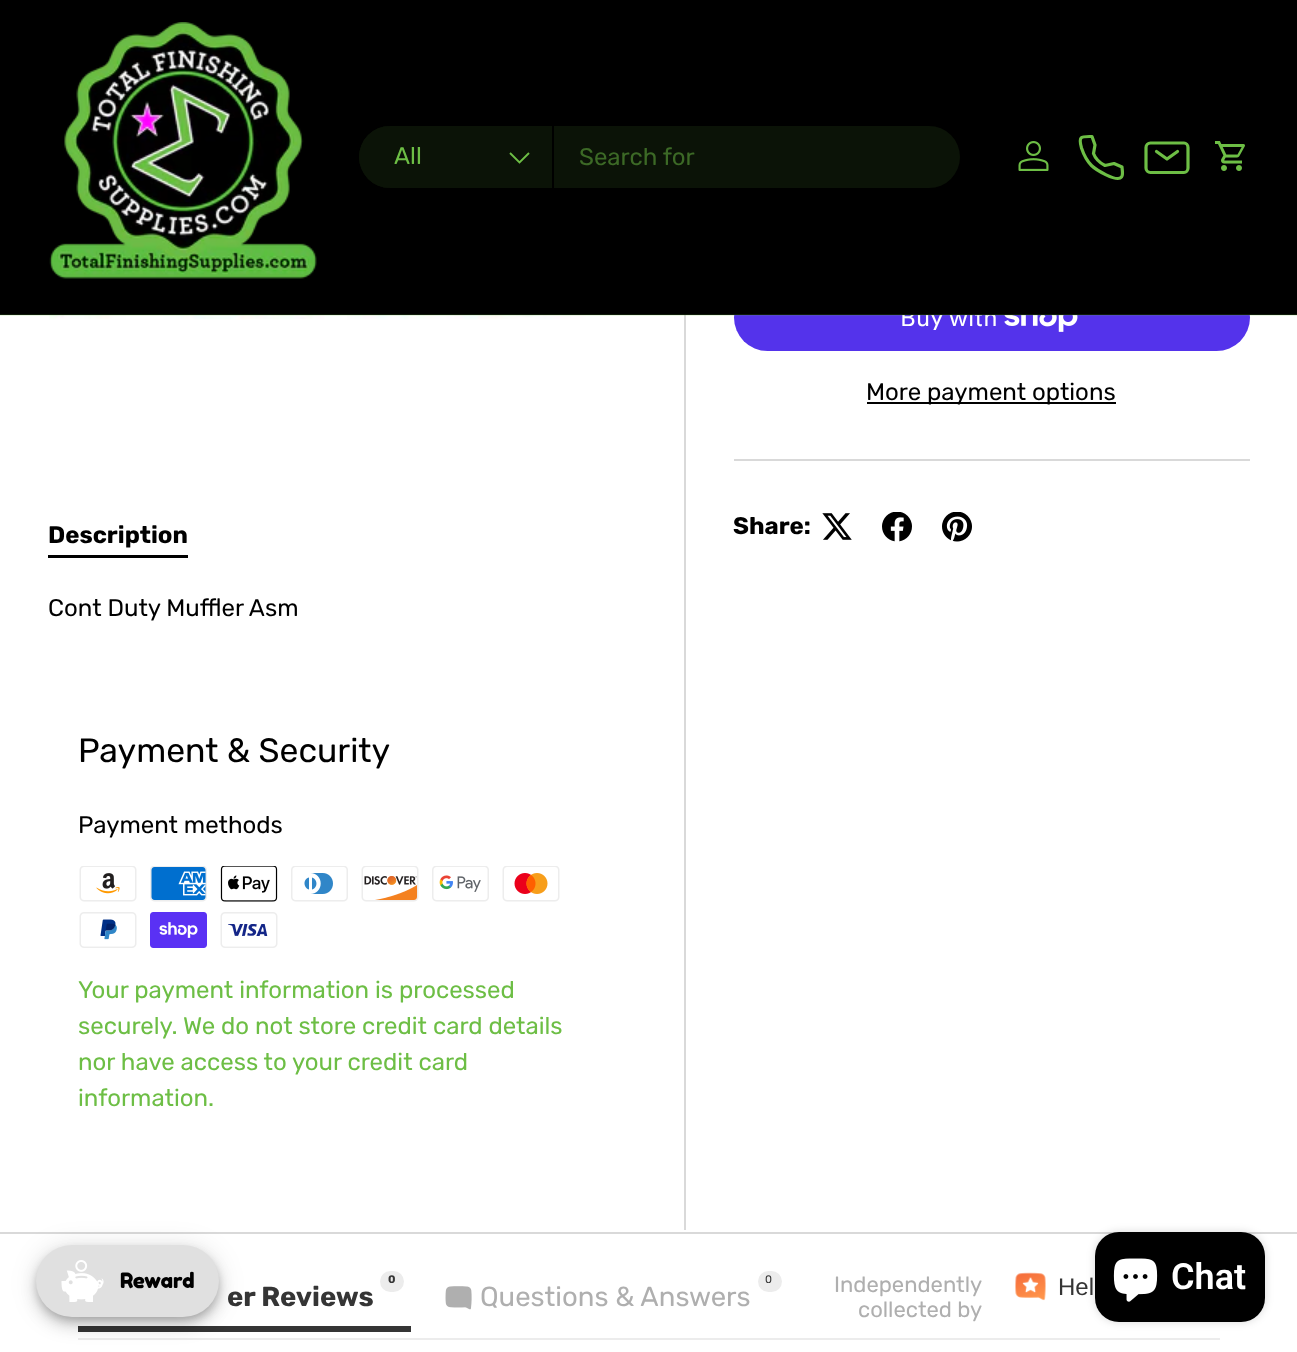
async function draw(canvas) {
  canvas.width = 1297
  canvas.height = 1352
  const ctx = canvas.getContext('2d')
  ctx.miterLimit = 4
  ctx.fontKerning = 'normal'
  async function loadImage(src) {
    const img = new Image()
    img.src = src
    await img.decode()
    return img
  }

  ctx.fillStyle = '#fff'
  ctx.fillRect(0, 0, 1297, 1352)
  ctx.fillStyle = '#5433eb'
  ctx.beginPath()
  ctx.roundRect(734, 284, 516, 67, 33.5)
  ctx.fill()
  ctx.font = '24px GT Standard'
  ctx.fillStyle = '#fff'
  ctx.fillText('Buy with', 900, 326)
  ctx.fillStyle = '#000'
  ctx.fillRect(0, 0, 1297, 315)
  ctx.drawImage(await loadImage('image3.png'), 49, 315, 586, 5)
  ctx.drawImage(await loadImage('image4.png'), 1004, 315, 74, 17)
  ctx.fillStyle = '#d9d9d9'
  ctx.fillRect(684, 315, 2, 915)
  ctx.fillStyle = '#6dbe4526'
  ctx.fillRect(0, 314, 1297, 2)
  ctx.drawImage(await loadImage('image0.png'), 49, 22, 268, 257)
  ctx.fillStyle = '#0b1307'
  ctx.beginPath()
  ctx.roundRect(359, 126, 601, 62, 31)
  ctx.fill()
  ctx.beginPath()
  ctx.roundRect(359, 126, 195, 62, [31, 0, 0, 31])
  ctx.fill()
  ctx.fillStyle = '#000'
  ctx.fillRect(552, 126, 2, 62)
  ctx.font = '24px Rubik'
  ctx.fillStyle = '#6dbe45'
  ctx.fillText('All', 394, 164)
  ctx.beginPath()
  ctx.moveTo(529, 153)
  ctx.lineTo(519.5, 162.5)
  ctx.lineTo(510, 153)
  ctx.strokeStyle = '#6dbe45'
  ctx.lineWidth = 1.9
  ctx.stroke()
  ctx.fillStyle = '#3c6926'
  ctx.fillText('Search for', 579, 165)
  ctx.drawImage(await loadImage('image1.png'), 1018, 141, 31, 30)
  ctx.beginPath()
  ctx.moveTo(1114, 163.5)
  ctx.lineTo(1105, 165.5)
  ctx.bezierCurveTo(1100, 163, 1095.5, 159, 1093.5, 153.5)
  ctx.lineTo(1095, 145)
  ctx.lineTo(1092, 136.5)
  ctx.bezierCurveTo(1081.5, 136.5, 1078, 135.5, 1081.5, 148)
  ctx.bezierCurveTo(1083.5, 154, 1086.5, 160.5, 1091.5, 165.5)
  ctx.bezierCurveTo(1095, 169, 1117, 183, 1121.5, 177)
  ctx.bezierCurveTo(1123.5, 174.5, 1122, 169.5, 1122, 167)
  ctx.closePath()
  ctx.lineWidth = 3.2
  ctx.lineCap = 'round'
  ctx.lineJoin = 'round'
  ctx.stroke()
  ctx.beginPath()
  ctx.moveTo(1156.5, 151.5)
  ctx.lineTo(1167, 159)
  ctx.lineTo(1177.5, 151.5)
  ctx.stroke()
  ctx.beginPath()
  ctx.moveTo(1146, 168)
  ctx.lineTo(1146, 147.5)
  ctx.bezierCurveTo(1146, 145, 1148, 143, 1150.5, 143)
  ctx.lineTo(1184, 143)
  ctx.bezierCurveTo(1186, 143, 1188, 145, 1188, 147.5)
  ctx.lineTo(1188, 168)
  ctx.bezierCurveTo(1188, 170.5, 1186, 172.5, 1184, 172.5)
  ctx.lineTo(1150.5, 172.5)
  ctx.bezierCurveTo(1148, 172.5, 1146, 170.5, 1146, 168)
  ctx.closePath()
  ctx.lineCap = 'butt'
  ctx.lineJoin = 'miter'
  ctx.stroke()
  ctx.drawImage(await loadImage('image2.png'), 1215, 141, 30, 30)
  ctx.fillStyle = '#000'
  ctx.fillRect(867, 402, 249, 2)
  ctx.fillText('More payment options', 866, 400)
  ctx.fillStyle = '#d9d9d9'
  ctx.fillRect(734, 459, 516, 2)
  ctx.font = 'bold 24px Rubik'
  ctx.fillStyle = '#000'
  ctx.fillText('Share:', 733, 534)
  ctx.drawImage(await loadImage('image5.png'), 822, 513, 30, 27)
  ctx.drawImage(await loadImage('image6.png'), 882, 512, 30, 30)
  ctx.drawImage(await loadImage('image7.png'), 942, 512, 30, 30)
  ctx.fillText('Description', 48, 543)
  ctx.fillRect(48, 555, 140, 3)
  ctx.font = '24px Rubik'
  ctx.fillText('Cont Duty Muffler Asm', 48, 616)
  ctx.font = '33.75px Rubik'
  ctx.fillText('Payment & Security', 78, 762)
  ctx.font = '24px Rubik'
  ctx.fillText('Payment methods', 78, 833)
  ctx.drawImage(await loadImage('image8.png'), 79, 866, 58, 36)
  ctx.drawImage(await loadImage('image9.png'), 150, 866, 57, 36)
  ctx.drawImage(await loadImage('image10.png'), 220, 866, 58, 36)
  ctx.drawImage(await loadImage('image11.png'), 291, 866, 57, 36)
  ctx.drawImage(await loadImage('image12.png'), 361, 866, 58, 36)
  ctx.drawImage(await loadImage('image13.png'), 432, 866, 57, 36)
  ctx.drawImage(await loadImage('image14.png'), 502, 866, 58, 36)
  ctx.drawImage(await loadImage('image15.png'), 79, 912, 58, 36)
  ctx.drawImage(await loadImage('image16.png'), 150, 912, 57, 36)
  ctx.drawImage(await loadImage('image17.png'), 220, 912, 58, 36)
  ctx.fillStyle = '#6dbe45'
  ctx.fillText('Your payment information is processed', 78, 998)
  ctx.fillText('securely. We do not store credit card details', 78, 1034)
  ctx.fillText('nor have access to your credit card', 78, 1070)
  ctx.fillText('information.', 78, 1106)
  ctx.fillStyle = '#d9d9d9'
  ctx.fillRect(0, 1232, 1297, 2)
  ctx.fillStyle = '#ececec'
  ctx.fillRect(78, 1338, 1142, 2)
  ctx.fillStyle = '#353535'
  ctx.fillRect(78, 1326, 333, 6)
  ctx.fillStyle = '#ececec'
  ctx.beginPath()
  ctx.roundRect(380, 1271, 24, 21, 10.5)
  ctx.fill()
  ctx.font = 'bold 11px Rubik'
  ctx.fillStyle = '#353535'
  ctx.fillText('0', 388, 1283)
  ctx.font = 'bold 27.5px Rubik'
  ctx.fillText('er Reviews', 227, 1306)
  ctx.fillStyle = '#ececec'
  ctx.beginPath()
  ctx.roundRect(758, 1271, 24, 21, 10.5)
  ctx.fill()
  ctx.font = '11px Rubik'
  ctx.fillStyle = '#353535'
  ctx.fillText('0', 765, 1283)
  ctx.drawImage(await loadImage('image18.png'), 445, 1286, 27, 24)
  ctx.font = '27.5px Rubik'
  ctx.fillStyle = '#afafaf'
  ctx.fillText('Questions & Answers', 480, 1306)
  ctx.font = '22px Rubik'
  ctx.fillText('Independently', 834, 1292)
  ctx.fillText('collected by', 858, 1317)
  ctx.drawImage(await loadImage('image19.png'), 1015, 1272, 31, 29)
  ctx.font = '24px Liberation Sans'
  ctx.fillStyle = '#353535'
  ctx.fillText('Hel', 1058, 1295)
  ctx.fillStyle = '#00000026'
  ctx.filter = 'blur(4px)'
  ctx.beginPath()
  ctx.roundRect(1095, 1232, 170, 90, 24)
  ctx.fill()
  ctx.filter = 'none'
  ctx.fillStyle = '#000'
  ctx.beginPath()
  ctx.roundRect(1095, 1232, 170, 90, 24)
  ctx.fill()
  ctx.drawImage(await loadImage('image20.png'), 1113, 1258, 45, 44)
  ctx.font = '600 36px Roboto'
  ctx.fillStyle = '#fff'
  ctx.fillText('Chat', 1171, 1289)
  ctx.fillStyle = '#0000001f'
  ctx.filter = 'blur(13.5px)'
  ctx.beginPath()
  ctx.roundRect(36, 1247, 183, 72, 36)
  ctx.fill()
  ctx.filter = 'none'
  ctx.fillStyle = '#00000024'
  ctx.filter = 'blur(7.5px)'
  ctx.beginPath()
  ctx.roundRect(36, 1254, 183, 72, 36)
  ctx.fill()
  ctx.filter = 'none'
  ctx.fillStyle = '#00000033'
  ctx.filter = 'blur(4px)'
  ctx.beginPath()
  ctx.roundRect(38, 1251, 180, 69, 34.5)
  ctx.fill()
  ctx.filter = 'none'
  ctx.fillStyle = '#e0e0e0'
  ctx.beginPath()
  ctx.roundRect(36, 1245, 183, 72, 36)
  ctx.fill()
  ctx.drawImage(await loadImage('image21.png'), 61, 1260, 43, 42)
  ctx.font = '21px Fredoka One'
  ctx.fillStyle = '#000'
  ctx.fillText('Reward', 120, 1288)
}

draw(document.querySelector('canvas'))
